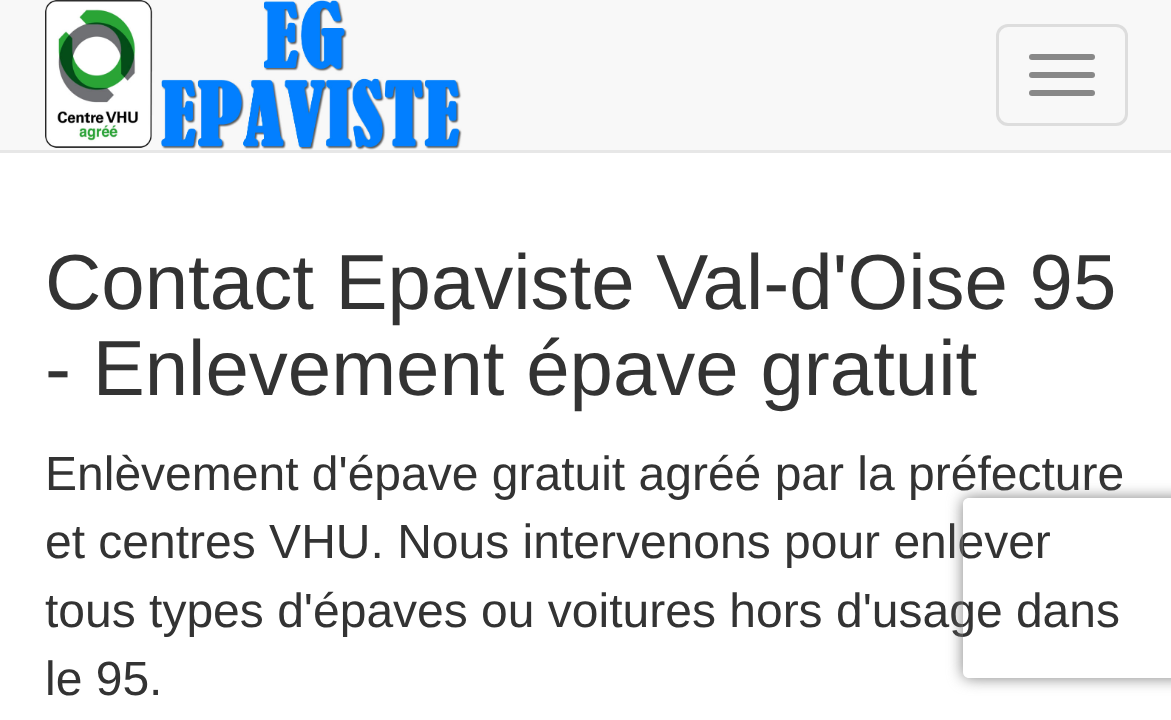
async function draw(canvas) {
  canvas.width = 1171
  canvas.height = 720
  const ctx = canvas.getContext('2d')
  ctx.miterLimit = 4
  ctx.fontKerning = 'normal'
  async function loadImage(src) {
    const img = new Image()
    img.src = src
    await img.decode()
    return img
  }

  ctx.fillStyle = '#fff'
  ctx.fillRect(0, 0, 1171, 720)
  ctx.fillStyle = '#f8f8f8'
  ctx.fillRect(0, 0, 1171, 150)
  ctx.fillStyle = '#e7e7e7'
  ctx.fillRect(0, 150, 1171, 3)
  ctx.drawImage(await loadImage('image0.png'), 45, 0, 417, 150)
  ctx.beginPath()
  ctx.roundRect(997.5, 25.5, 129, 99, 10.5)
  ctx.strokeStyle = '#ddd'
  ctx.lineWidth = 3
  ctx.stroke()
  ctx.fillStyle = '#888'
  ctx.beginPath()
  ctx.roundRect(1029, 54, 66, 6, 3)
  ctx.fill()
  ctx.beginPath()
  ctx.roundRect(1029, 72, 66, 6, 3)
  ctx.fill()
  ctx.beginPath()
  ctx.roundRect(1029, 90, 66, 6, 3)
  ctx.fill()
  ctx.font = '78px Liberation Sans'
  ctx.fillStyle = '#333'
  ctx.fillText('Contact Epaviste Val-d\'Oise 95', 45, 309)
  ctx.fillText('- Enlevement épave gratuit', 45, 395)
  ctx.font = '48px Liberation Sans'
  ctx.fillText('Enlèvement d\'épave gratuit agréé par la préfecture', 45, 490)
  ctx.fillText('et centres VHU. Nous intervenons pour enlever', 45, 558)
  ctx.fillText('tous types d\'épaves ou voitures hors d\'usage dans', 45, 627)
  ctx.fillText('le 95.', 45, 695)
  ctx.save()
  ctx.beginPath()
  ctx.moveTo(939, 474)
  ctx.lineTo(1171, 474)
  ctx.lineTo(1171, 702)
  ctx.lineTo(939, 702)
  ctx.closePath()
  ctx.moveTo(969, 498)
  ctx.lineTo(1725, 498)
  ctx.bezierCurveTo(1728.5, 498, 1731, 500.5, 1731, 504)
  ctx.lineTo(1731, 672)
  ctx.bezierCurveTo(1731, 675.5, 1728.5, 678, 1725, 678)
  ctx.lineTo(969, 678)
  ctx.bezierCurveTo(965.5, 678, 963, 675.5, 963, 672)
  ctx.lineTo(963, 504)
  ctx.bezierCurveTo(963, 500.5, 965.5, 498, 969, 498)
  ctx.closePath()
  ctx.clip('evenodd')
  ctx.fillStyle = '#808080'
  ctx.filter = 'blur(7.5px)'
  ctx.beginPath()
  ctx.roundRect(963, 498, 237, 180, 6)
  ctx.fill()
  ctx.filter = 'none'
  ctx.restore()
}

draw(document.querySelector('canvas'))
